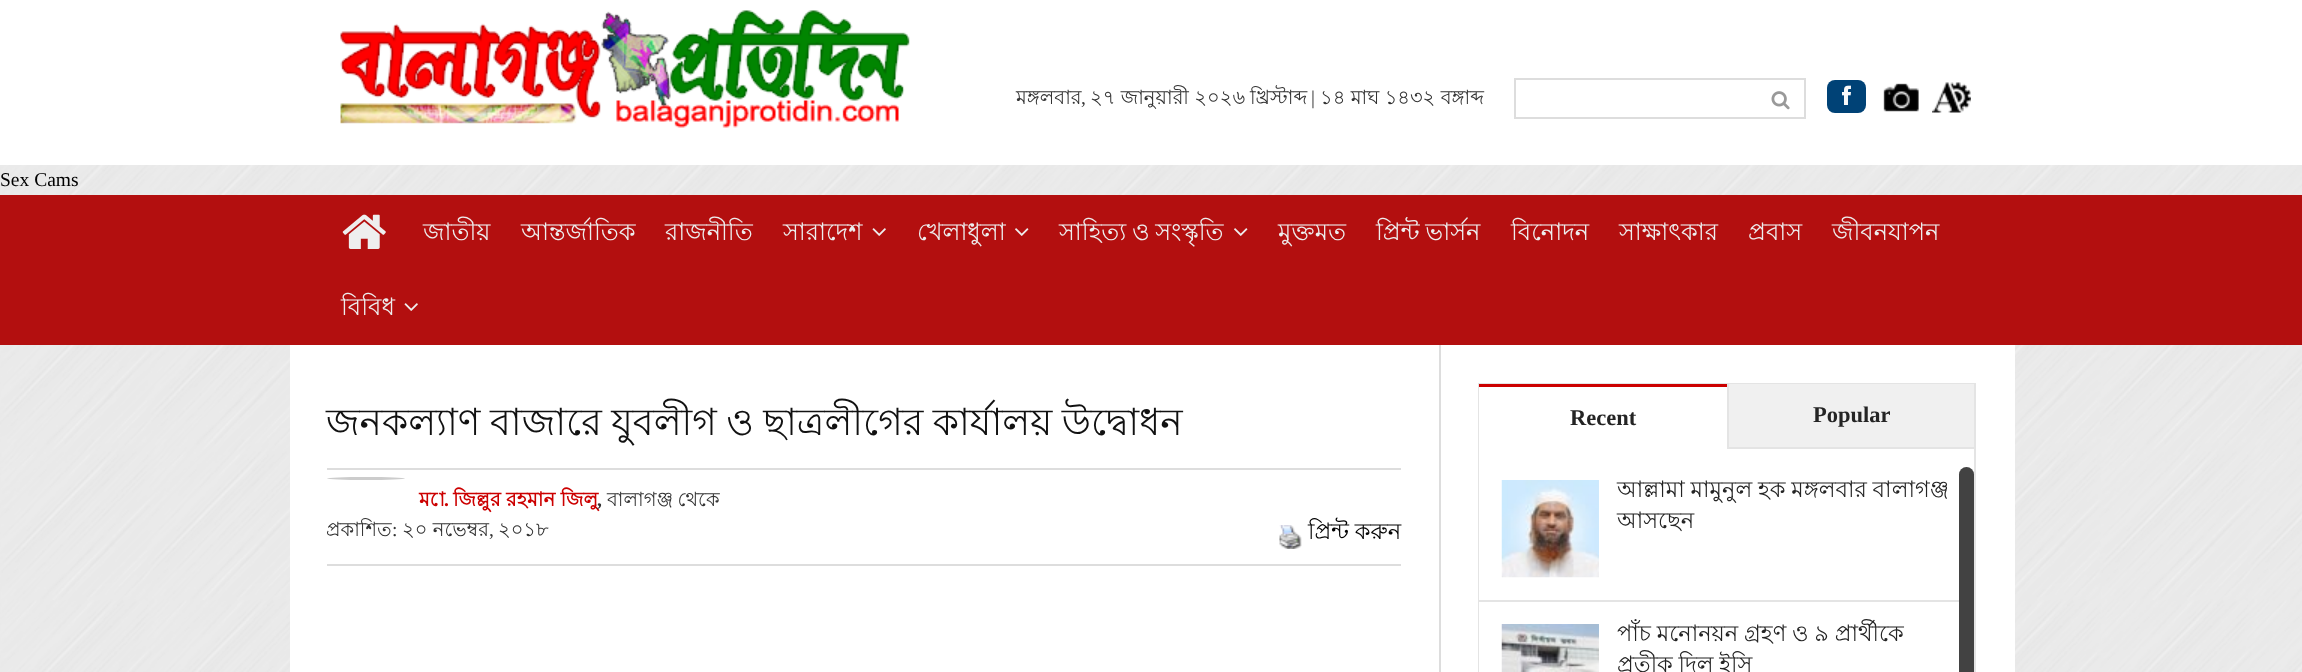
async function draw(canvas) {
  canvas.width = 2302
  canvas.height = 672
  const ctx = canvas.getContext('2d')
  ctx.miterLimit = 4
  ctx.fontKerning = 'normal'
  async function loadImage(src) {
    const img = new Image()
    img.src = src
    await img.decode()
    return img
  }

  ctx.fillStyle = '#fff'
  ctx.fillRect(0, 0, 2302, 672)
  ctx.drawImage(await loadImage('image0.png'), 0, 165, 2302, 507)
  ctx.drawImage(await loadImage('image1.png'), 340, 10, 570, 118)
  ctx.font = '19.5px Lohit Bengali'
  ctx.fillStyle = '#333'
  ctx.fillText('মঙ্গলবার', 1016, 104)
  ctx.font = '19.5px Liberation Serif'
  ctx.fillText(',', 1081, 104)
  ctx.font = '19.5px Lohit Bengali'
  ctx.fillText('২৭ জানুয়ারী ২০২৬', 1090, 104)
  ctx.fillText('খ্রিস্টাব্দ', 1250, 104)
  ctx.font = '19.5px Liberation Serif'
  ctx.fillText('|', 1311, 104)
  ctx.font = '19.5px Lohit Bengali'
  ctx.fillText('১৪ মাঘ ১৪৩২ বঙ্গাব্দ', 1320, 104)
  ctx.strokeStyle = '#ddd'
  ctx.lineWidth = 2
  ctx.strokeRect(1515, 79, 290, 39)
  ctx.drawImage(await loadImage('image2.png'), 1771, 91, 19, 19)
  ctx.fillStyle = '#004276'
  ctx.beginPath()
  ctx.roundRect(1827, 80, 39, 33, 8)
  ctx.fill()
  ctx.drawImage(await loadImage('image3.png'), 1842, 85, 9, 20)
  ctx.drawImage(await loadImage('image4.png'), 1883, 83, 36, 29)
  ctx.drawImage(await loadImage('image5.png'), 1932, 82, 39, 31)
  ctx.font = '19.5px Liberation Serif'
  ctx.fillStyle = '#000'
  ctx.fillText('Sex Cams', 0, 186)
  ctx.fillStyle = '#b30f0f'
  ctx.fillRect(0, 195, 2302, 150)
  ctx.drawImage(await loadImage('image6.png'), 342, 214, 44, 35)
  ctx.font = '24px Lohit Bengali'
  ctx.fillStyle = '#eee'
  ctx.fillText('জাতীয়', 423, 240)
  ctx.fillText('আন্তর্জাতিক', 521, 240)
  ctx.fillText('রাজনীতি', 665, 240)
  ctx.fillText('সারাদেশ', 783, 240)
  ctx.drawImage(await loadImage('image7.png'), 872, 228, 14, 8)
  ctx.fillText('খেলাধুলা', 917, 240)
  ctx.drawImage(await loadImage('image8.png'), 1015, 228, 14, 8)
  ctx.wordSpacing = '-1px'
  ctx.fillText('সাহিত্য ও সংস্কৃতি', 1059, 240)
  ctx.drawImage(await loadImage('image8.png'), 1234, 228, 14, 8)
  ctx.wordSpacing = '0px'
  ctx.fillText('মুক্তমত', 1278, 240)
  ctx.wordSpacing = '-1px'
  ctx.fillText('প্রিন্ট ভার্সন', 1376, 240)
  ctx.wordSpacing = '0px'
  ctx.fillText('বিনোদন', 1511, 240)
  ctx.fillText('সাক্ষাৎকার', 1619, 240)
  ctx.fillText('প্রবাস', 1748, 240)
  ctx.fillText('জীবনযাপন', 1832, 240)
  ctx.fillText('বিবিধ', 341, 315)
  ctx.drawImage(await loadImage('image7.png'), 404, 303, 14, 8)
  ctx.fillStyle = '#fff'
  ctx.fillRect(290, 345, 1725, 327)
  ctx.wordSpacing = '-1px'
  ctx.font = '37.5px Lohit Bengali'
  ctx.fillStyle = '#111'
  ctx.fillText('জনকল্যাণ বাজারে যুবলীগ ও ছাত্রলীগের কার্যালয় উদ্বোধন', 326, 435)
  ctx.fillStyle = '#ddd'
  ctx.fillRect(327, 468, 1074, 2)
  ctx.fillStyle = '#ccc'
  ctx.beginPath()
  ctx.ellipse(366, 478.5, 39, 1.5, 0, 0, 2 * Math.PI)
  ctx.fill()
  ctx.wordSpacing = '0px'
  ctx.font = 'bold 19.5px Lohit Bengali'
  ctx.fillStyle = '#c00'
  ctx.fillText('মো', 419, 506)
  ctx.font = 'bold 19.5px Liberation Serif'
  ctx.fillText('.', 444, 506)
  ctx.font = 'bold 19.5px Lohit Bengali'
  ctx.fillText('জিল্লুর রহমান জিলু', 453, 506)
  ctx.font = 'bold 19.5px Liberation Serif'
  ctx.fillStyle = '#333'
  ctx.fillText(',', 597, 506)
  ctx.wordSpacing = '-1px'
  ctx.font = '19.5px Lohit Bengali'
  ctx.fillText('বালাগঞ্জ থেকে', 607, 506)
  ctx.wordSpacing = '0px'
  ctx.fillText('প্রকাশিত', 326, 536)
  ctx.font = '19.5px Liberation Serif'
  ctx.fillText(':', 392, 536)
  ctx.font = '19.5px Lohit Bengali'
  ctx.fillText('২০ নভেম্বর', 402, 536)
  ctx.font = '19.5px Liberation Serif'
  ctx.fillText(',', 489, 536)
  ctx.font = '19.5px Lohit Bengali'
  ctx.fillText('২০১৮', 498, 536)
  ctx.drawImage(await loadImage('image9.png'), 1279, 525, 23, 24)
  ctx.wordSpacing = '-0.5px'
  ctx.font = '22.5px Lohit Bengali'
  ctx.fillStyle = '#000'
  ctx.fillText('প্রিন্ট করুন', 1308, 539)
  ctx.fillStyle = '#ddd'
  ctx.fillRect(327, 564, 1074, 2)
  ctx.fillRect(1439, 345, 2, 327)
  ctx.strokeStyle = '#e4e4e4'
  ctx.strokeRect(1479, 384, 496, 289)
  ctx.fillStyle = '#c00'
  ctx.fillRect(1479, 384, 248, 3)
  ctx.wordSpacing = '0px'
  ctx.font = 'bold 22.5px Liberation Serif'
  ctx.fillStyle = '#242424'
  ctx.fillText('Recent', 1570, 425)
  ctx.fillStyle = '#f0f0f0'
  ctx.fillRect(1729, 384, 245, 63)
  ctx.fillStyle = '#e4e4e4'
  ctx.fillRect(1727, 447, 247, 2)
  ctx.fillRect(1727, 384, 2, 65)
  ctx.fillStyle = '#242424'
  ctx.fillText('Popular', 1813, 422)
  ctx.fillStyle = '#fff'
  ctx.fillRect(1479, 387, 1, 285)
  ctx.fillStyle = '#e4e4e4'
  ctx.fillRect(1479, 600, 480, 2)
  ctx.drawImage(await loadImage('image10.png'), 1501, 480, 98, 98)
  ctx.wordSpacing = '-0.5px'
  ctx.font = '22.5px Lohit Bengali'
  ctx.fillStyle = '#242424'
  ctx.fillText('আল্লামা মামুনুল হক মঙ্গলবার বালাগঞ্জ', 1617, 497)
  ctx.wordSpacing = '0px'
  ctx.fillText('আসছেন', 1617, 528)
  ctx.drawImage(await loadImage('image11.png'), 1501, 624, 98, 48)
  ctx.wordSpacing = '-0.5px'
  ctx.fillText('পাঁচ মনোনয়ন গ্রহণ ও ৯ প্রার্থীকে', 1617, 641)
  ctx.fillText('প্রতীক দিল ইসি', 1617, 672)
  ctx.fillStyle = '#424242'
  ctx.beginPath()
  ctx.roundRect(1959, 467, 15, 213, 7.5)
  ctx.fill()
}

draw(document.querySelector('canvas'))
